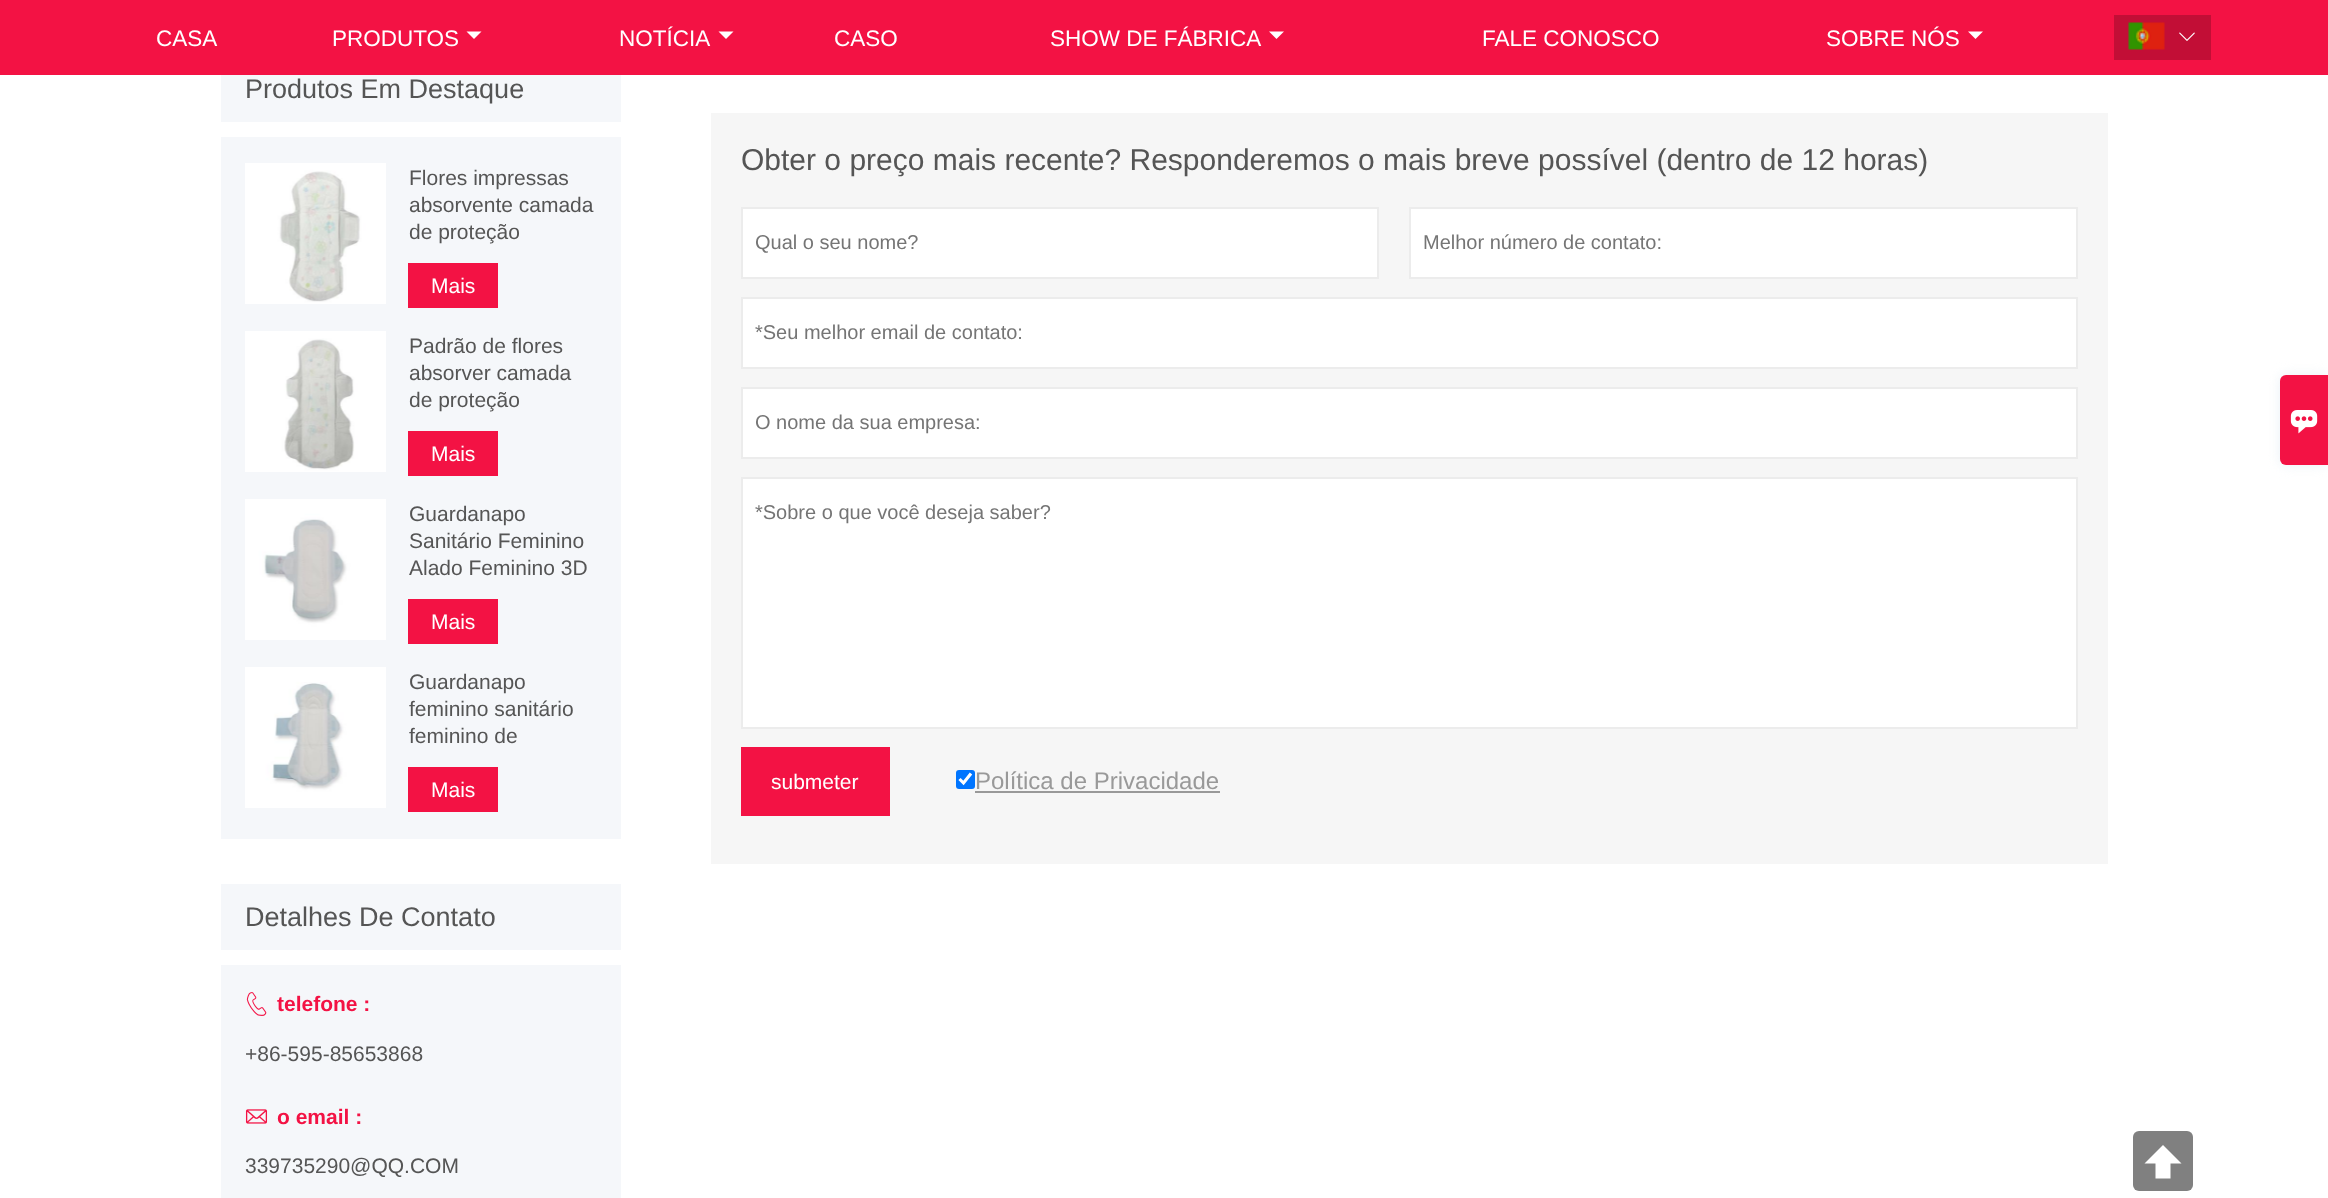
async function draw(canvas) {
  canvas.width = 2328
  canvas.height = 1198
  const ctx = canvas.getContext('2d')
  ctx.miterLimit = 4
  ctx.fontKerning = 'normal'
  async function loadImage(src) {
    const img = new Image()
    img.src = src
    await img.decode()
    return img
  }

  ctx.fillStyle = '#fff'
  ctx.fillRect(0, 0, 2328, 1198)
  ctx.fillStyle = '#f31244'
  ctx.fillRect(0, 0, 2328, 75)
  ctx.font = '22.5px Liberation Sans'
  ctx.fillStyle = '#fff'
  ctx.fillText('CASA', 156, 46)
  ctx.fillText('PRODUTOS', 332, 46)
  ctx.beginPath()
  ctx.moveTo(466.5, 31.5)
  ctx.lineTo(481.5, 31.5)
  ctx.lineTo(474, 39)
  ctx.closePath()
  ctx.fill()
  ctx.fillText('NOTÍCIA', 619, 46)
  ctx.beginPath()
  ctx.moveTo(718.5, 31.5)
  ctx.lineTo(733.5, 31.5)
  ctx.lineTo(726, 39)
  ctx.closePath()
  ctx.fill()
  ctx.fillText('CASO', 834, 46)
  ctx.fillText('SHOW DE FÁBRICA', 1050, 46)
  ctx.beginPath()
  ctx.moveTo(1269, 31.5)
  ctx.lineTo(1284, 31.5)
  ctx.lineTo(1276.5, 39)
  ctx.closePath()
  ctx.fill()
  ctx.fillText('FALE CONOSCO', 1482, 46)
  ctx.fillText('SOBRE NÓS', 1826, 46)
  ctx.beginPath()
  ctx.moveTo(1968, 31.5)
  ctx.lineTo(1983, 31.5)
  ctx.lineTo(1975.5, 39)
  ctx.closePath()
  ctx.fill()
  ctx.fillStyle = '#c20e36'
  ctx.fillRect(2114, 15, 97, 45)
  ctx.drawImage(await loadImage('image0.png'), 2128, 22, 37, 28)
  ctx.drawImage(await loadImage('image1.png'), 2179, 32, 16, 9)
  ctx.fillStyle = '#f5f7fa'
  ctx.fillRect(221, 75, 400, 47)
  ctx.font = '27px Liberation Sans'
  ctx.fillStyle = '#555'
  ctx.fillText('Produtos Em Destaque', 245, 98)
  ctx.fillStyle = '#f5f7fa'
  ctx.fillRect(221, 137, 400, 702)
  ctx.drawImage(await loadImage('image2.png'), 245, 163, 141, 141)
  ctx.font = '21px Liberation Sans'
  ctx.fillStyle = '#555'
  ctx.fillText('Flores impressas', 409, 185)
  ctx.fillText('absorvente camada', 409, 212)
  ctx.fillText('de proteção', 409, 239)
  ctx.fillStyle = '#f31244'
  ctx.fillRect(408, 263, 90, 45)
  ctx.fillStyle = '#fff'
  ctx.fillText('Mais', 431, 293)
  ctx.drawImage(await loadImage('image3.png'), 245, 331, 141, 141)
  ctx.fillStyle = '#555'
  ctx.fillText('Padrão de flores', 409, 353)
  ctx.fillText('absorver camada', 409, 380)
  ctx.fillText('de proteção', 409, 407)
  ctx.fillStyle = '#f31244'
  ctx.fillRect(408, 431, 90, 45)
  ctx.fillStyle = '#fff'
  ctx.fillText('Mais', 431, 461)
  ctx.drawImage(await loadImage('image4.png'), 245, 499, 141, 141)
  ctx.fillStyle = '#555'
  ctx.fillText('Guardanapo', 409, 521)
  ctx.fillText('Sanitário Feminino', 409, 548)
  ctx.fillText('Alado Feminino 3D', 409, 575)
  ctx.fillStyle = '#f31244'
  ctx.fillRect(408, 599, 90, 45)
  ctx.fillStyle = '#fff'
  ctx.fillText('Mais', 431, 629)
  ctx.drawImage(await loadImage('image5.png'), 245, 667, 141, 141)
  ctx.fillStyle = '#555'
  ctx.fillText('Guardanapo', 409, 689)
  ctx.fillText('feminino sanitário', 409, 716)
  ctx.fillText('feminino de', 409, 743)
  ctx.fillStyle = '#f31244'
  ctx.fillRect(408, 767, 90, 45)
  ctx.fillStyle = '#fff'
  ctx.fillText('Mais', 431, 797)
  ctx.fillStyle = '#f5f7fa'
  ctx.fillRect(221, 884, 400, 66)
  ctx.font = '27px Liberation Sans'
  ctx.fillStyle = '#555'
  ctx.fillText('Detalhes De Contato', 245, 926)
  ctx.fillStyle = '#f5f7fa'
  ctx.fillRect(221, 965, 400, 233)
  ctx.drawImage(await loadImage('image6.png'), 246, 992, 21, 24)
  ctx.font = 'bold 21px Liberation Sans'
  ctx.fillStyle = '#f31244'
  ctx.fillText('telefone :', 277, 1011)
  ctx.font = '21px Liberation Sans'
  ctx.fillStyle = '#555'
  ctx.fillText('+86-595-85653868', 245, 1061)
  ctx.drawImage(await loadImage('image7.png'), 245, 1109, 23, 15)
  ctx.font = 'bold 21px Liberation Sans'
  ctx.fillStyle = '#f31244'
  ctx.fillText('o email :', 277, 1124)
  ctx.font = '21px Liberation Sans'
  ctx.fillStyle = '#555'
  ctx.fillText('339735290@QQ.COM', 245, 1173)
  ctx.fillStyle = '#f6f6f6'
  ctx.fillRect(711, 113, 1397, 751)
  ctx.font = '30px Liberation Sans'
  ctx.fillStyle = '#555'
  ctx.fillText('Obter o preço mais recente? Responderemos o mais breve possível (dentro de 12 horas)', 741, 170)
  ctx.fillStyle = '#fff'
  ctx.beginPath()
  ctx.rect(742, 208, 636, 70)
  ctx.fill()
  ctx.strokeStyle = '#ececec'
  ctx.lineWidth = 2
  ctx.stroke()
  ctx.font = '20px Liberation Sans'
  ctx.fillStyle = '#757575'
  ctx.fillText('Qual o seu nome?', 755, 249)
  ctx.fillStyle = '#fff'
  ctx.beginPath()
  ctx.rect(1410, 208, 667, 70)
  ctx.fill()
  ctx.stroke()
  ctx.fillStyle = '#757575'
  ctx.fillText('Melhor número de contato:', 1423, 249)
  ctx.fillStyle = '#fff'
  ctx.beginPath()
  ctx.rect(742, 298, 1335, 70)
  ctx.fill()
  ctx.stroke()
  ctx.fillStyle = '#757575'
  ctx.fillText('*Seu melhor email de contato:', 755, 339)
  ctx.fillStyle = '#fff'
  ctx.beginPath()
  ctx.rect(742, 388, 1335, 70)
  ctx.fill()
  ctx.stroke()
  ctx.fillStyle = '#757575'
  ctx.fillText('O nome da sua empresa:', 755, 429)
  ctx.fillStyle = '#fff'
  ctx.beginPath()
  ctx.rect(742, 478, 1335, 250)
  ctx.fill()
  ctx.stroke()
  ctx.fillStyle = '#757575'
  ctx.fillText('*Sobre o que você deseja saber?', 755, 519)
  ctx.fillStyle = '#f31244'
  ctx.fillRect(741, 747, 149, 69)
  ctx.font = '21px Liberation Sans'
  ctx.fillStyle = '#fff'
  ctx.fillText('submeter', 771, 789)
  ctx.fillStyle = '#0075ff'
  ctx.beginPath()
  ctx.roundRect(956, 770, 19, 19, 3)
  ctx.fill()
  ctx.beginPath()
  ctx.moveTo(959.5, 779)
  ctx.lineTo(963.5, 783)
  ctx.lineTo(971, 773.5)
  ctx.strokeStyle = '#fff'
  ctx.lineWidth = 3.1
  ctx.stroke()
  ctx.font = '24px Liberation Sans'
  ctx.fillStyle = '#999'
  ctx.fillText('Política de Privacidade', 975, 789)
  ctx.fillRect(975, 791, 245, 2)
  ctx.fillStyle = '#808080'
  ctx.beginPath()
  ctx.roundRect(2133, 1131, 60, 60, 6)
  ctx.fill()
  ctx.fillStyle = '#fff'
  ctx.beginPath()
  ctx.moveTo(2181.5, 1163.5)
  ctx.lineTo(2163, 1145)
  ctx.lineTo(2144.5, 1163.5)
  ctx.lineTo(2155.5, 1163.5)
  ctx.lineTo(2155.5, 1178.5)
  ctx.lineTo(2170.5, 1178.5)
  ctx.lineTo(2170.5, 1163.5)
  ctx.closePath()
  ctx.fill()
  ctx.fillStyle = '#eaf0f6'
  ctx.filter = 'blur(6px)'
  ctx.beginPath()
  ctx.roundRect(2280, 375, 48, 90, 6)
  ctx.fill()
  ctx.filter = 'none'
  ctx.fillStyle = '#f31244'
  ctx.beginPath()
  ctx.roundRect(2280, 375, 48, 90, [6, 0, 0, 6])
  ctx.fill()
  ctx.drawImage(await loadImage('image8.png'), 2290, 410, 28, 24)
}

draw(document.querySelector('canvas'))
